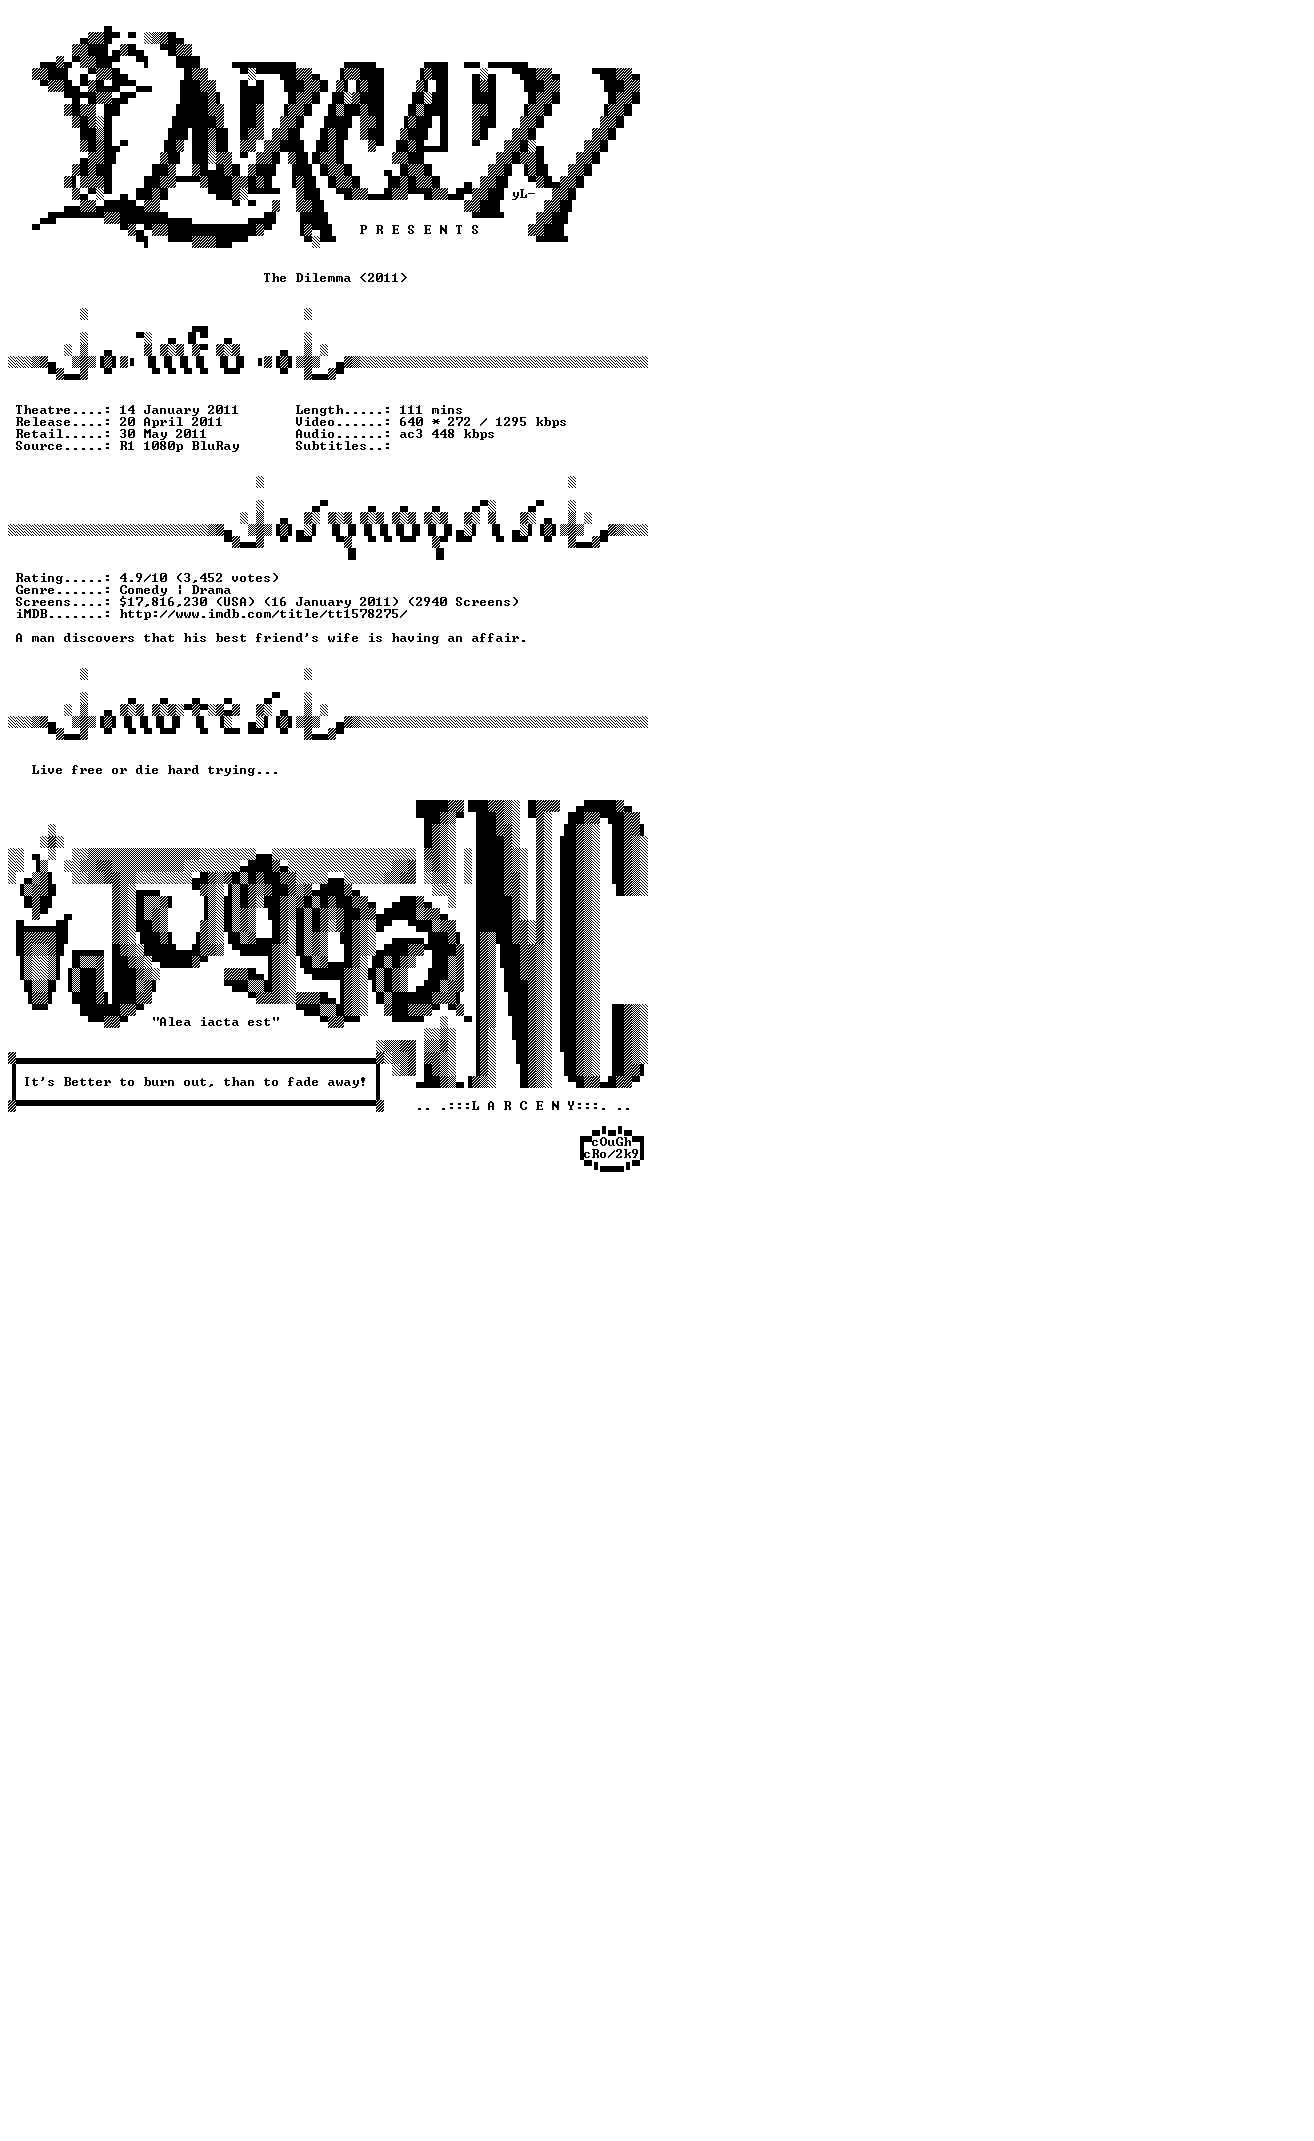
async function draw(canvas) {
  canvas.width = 1314
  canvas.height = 2141
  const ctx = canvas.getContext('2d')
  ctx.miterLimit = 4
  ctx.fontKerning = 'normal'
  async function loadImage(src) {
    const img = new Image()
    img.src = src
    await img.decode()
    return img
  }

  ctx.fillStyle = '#fff'
  ctx.fillRect(0, 0, 1314, 2141)
  ctx.drawImage(await loadImage('image0.png'), 8, 26, 640, 1146)
}

draw(document.querySelector('canvas'))
